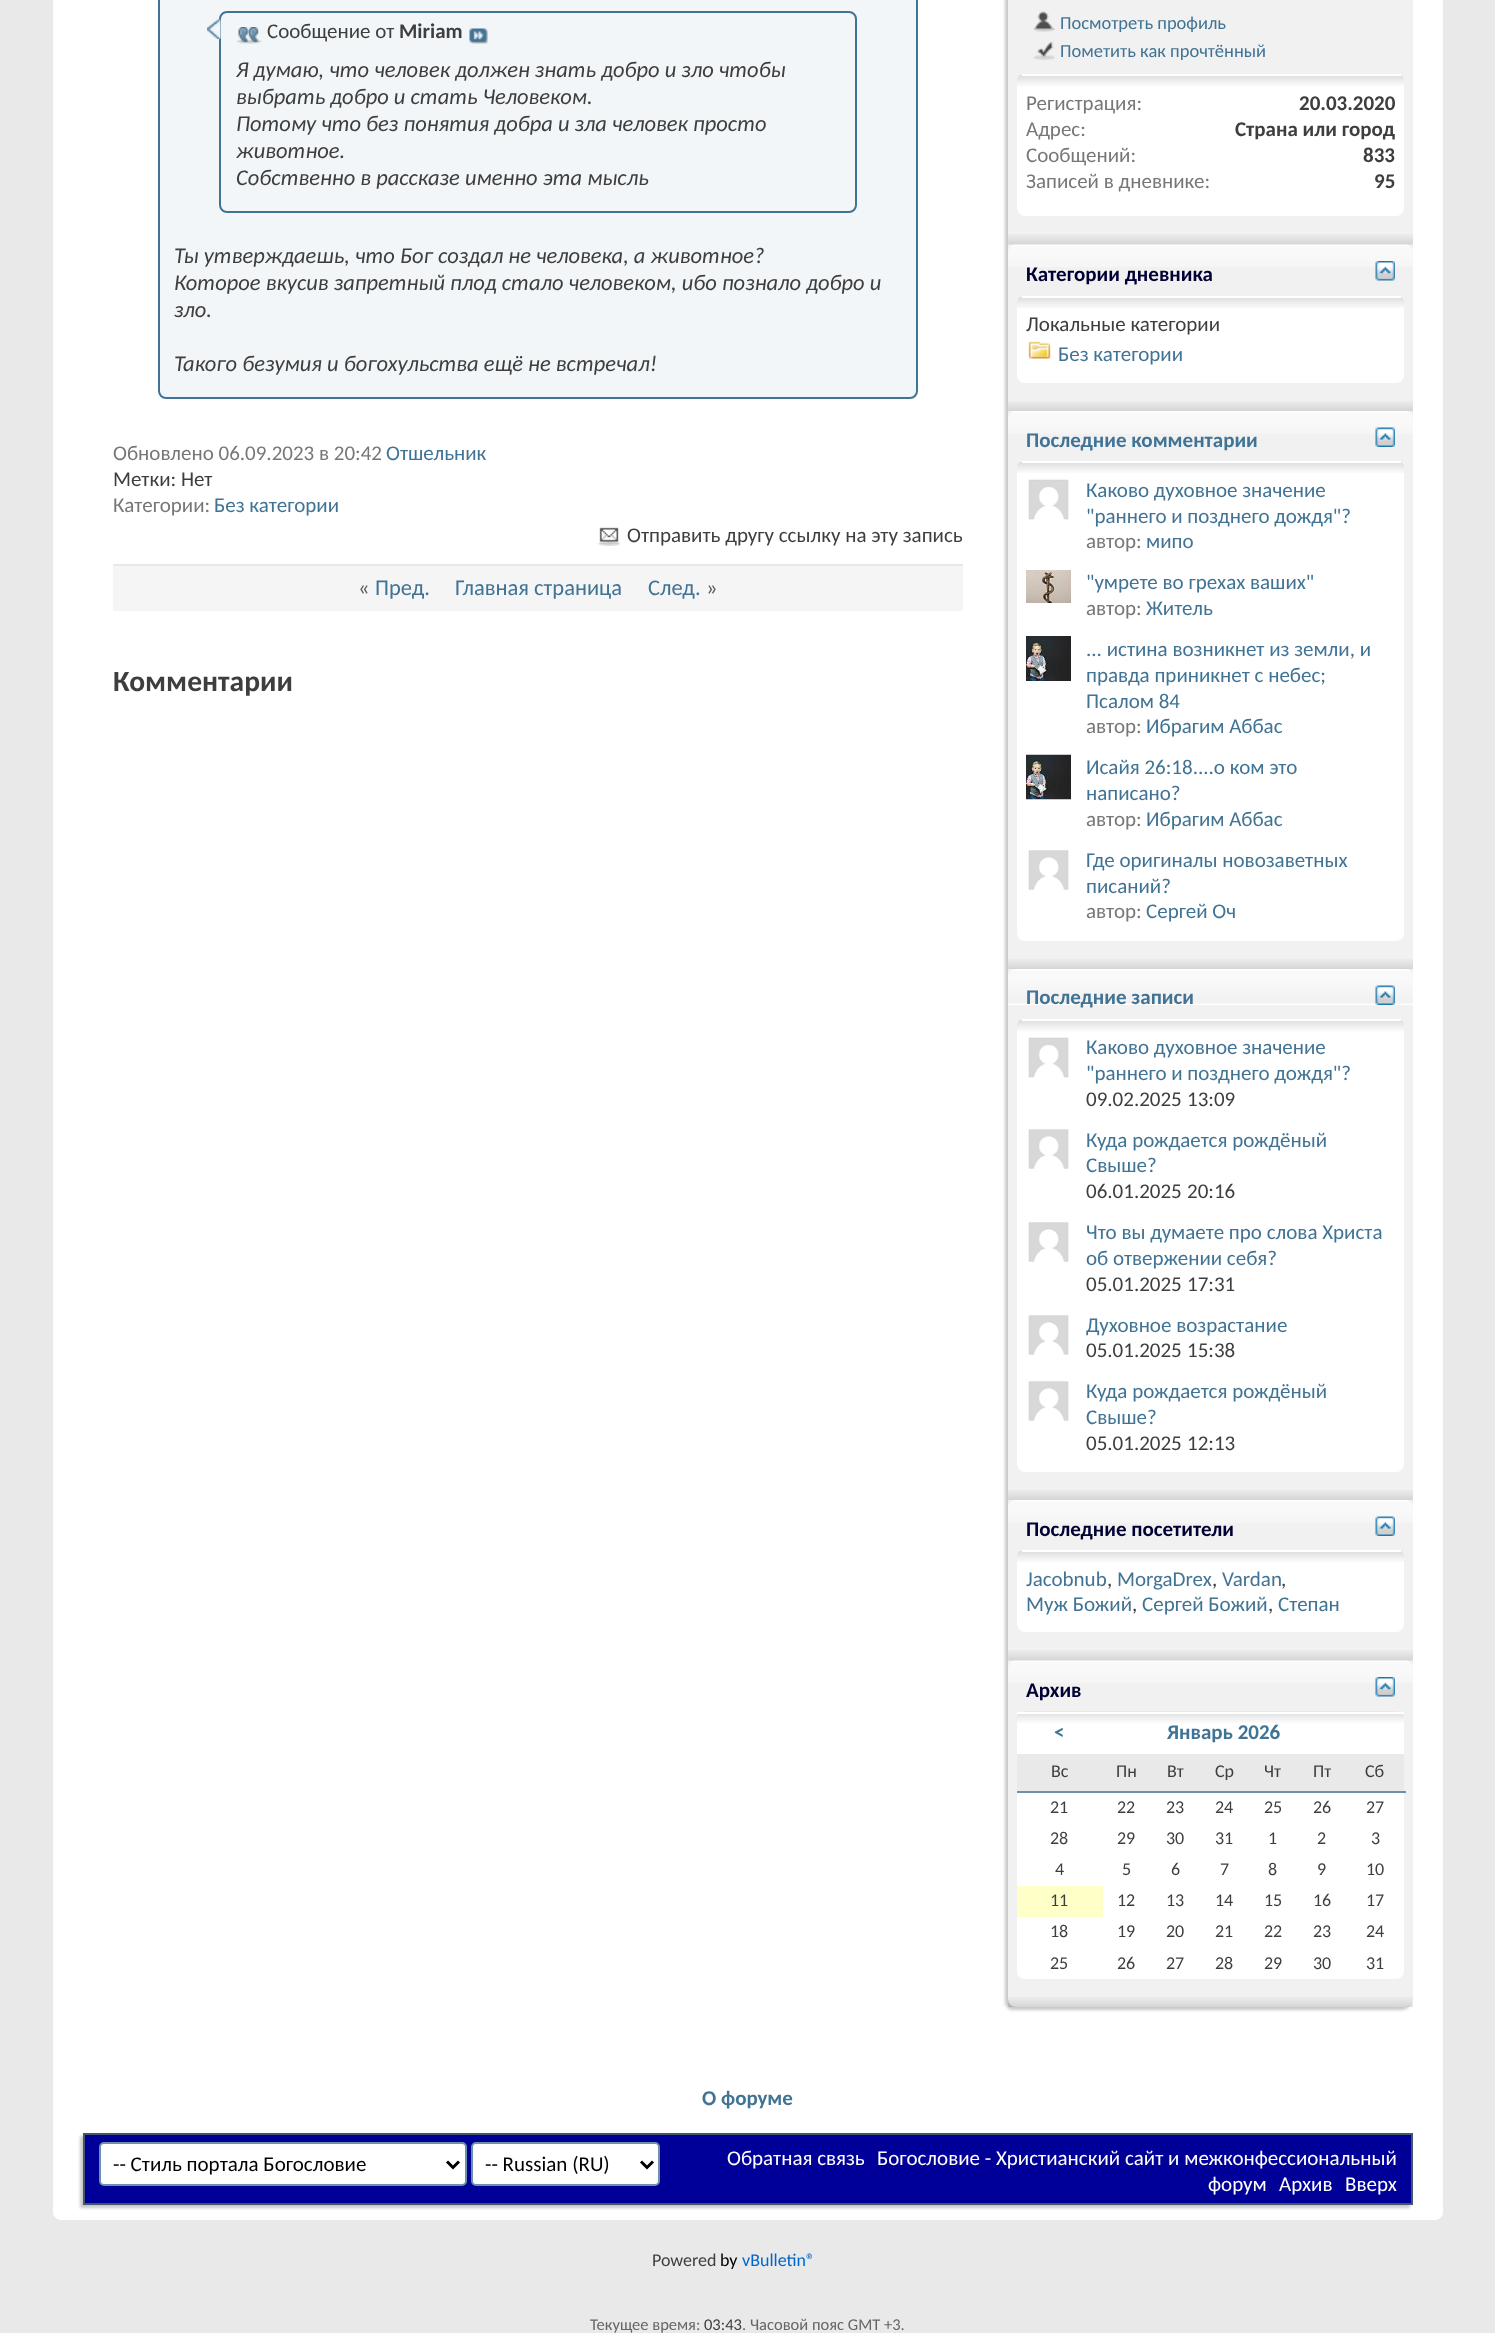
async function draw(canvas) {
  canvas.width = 1495
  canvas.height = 2333
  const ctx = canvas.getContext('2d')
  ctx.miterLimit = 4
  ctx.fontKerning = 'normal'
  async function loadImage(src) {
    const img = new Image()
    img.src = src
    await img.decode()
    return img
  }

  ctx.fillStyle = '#e9e9e9'
  ctx.fillRect(0, 0, 1495, 2333)
  ctx.fillStyle = '#fff'
  ctx.beginPath()
  ctx.roundRect(53, -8, 1390, 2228, 8)
  ctx.fill()
  ctx.fillStyle = '#f2f6f8'
  ctx.beginPath()
  ctx.roundRect(159, -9, 758, 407, 7)
  ctx.fill()
  ctx.strokeStyle = '#417394'
  ctx.lineWidth = 2
  ctx.stroke()
  ctx.beginPath()
  ctx.roundRect(220, 12, 636, 200, 7)
  ctx.stroke()
  ctx.drawImage(await loadImage('image0.png'), 207, 19, 14, 20)
  ctx.drawImage(await loadImage('image1.png'), 236, 27, 26, 17)
  ctx.font = '21px Carlito'
  ctx.fillStyle = '#3e3e3e'
  ctx.fillText('Сообщение от', 267, 38)
  ctx.font = 'bold 21px Carlito'
  ctx.fillText('Miriam', 399, 38)
  ctx.drawImage(await loadImage('image2.png'), 469, 28, 19, 16)
  ctx.font = 'italic 22.5px Carlito'
  ctx.fillText('Я думаю, что человек должен знать добро и зло чтобы', 236, 77)
  ctx.fillText('выбрать добро и стать Человеком.', 236, 104)
  ctx.fillText('Потому что без понятия добра и зла человек просто', 236, 131)
  ctx.fillText('животное.', 236, 158)
  ctx.fillText('Собственно в рассказе именно эта мысль', 236, 185)
  ctx.fillText('Ты утверждаешь, что Бог создал не человека, а животное?', 174, 263)
  ctx.fillText('Которое вкусив запретный плод стало человеком, ибо познало добро и', 174, 290)
  ctx.fillText('зло.', 174, 317)
  ctx.fillText('Такого безумия и богохульства ещё не встречал!', 174, 371)
  ctx.font = '21px Carlito'
  ctx.fillStyle = '#777'
  ctx.fillText('Обновлено 06.09.2023 в 20:42', 113, 460)
  ctx.fillStyle = '#417394'
  ctx.fillText('Отшельник', 386, 460)
  ctx.fillStyle = '#3e3e3e'
  ctx.fillText('Метки: Нет', 113, 486)
  ctx.fillStyle = '#777'
  ctx.fillText('Категории:', 113, 512)
  ctx.fillStyle = '#417394'
  ctx.fillText('Без категории', 214, 512)
  ctx.drawImage(await loadImage('image3.png'), 598, 527, 22, 19)
  ctx.fillStyle = '#3e3e3e'
  ctx.fillText('Отправить другу ссылку на эту запись', 627, 542)
  ctx.fillStyle = '#f5f5f5'
  ctx.fillRect(113, 566, 850, 45)
  ctx.fillStyle = '#e7e7e7'
  ctx.fillRect(113, 564, 850, 2)
  ctx.font = '22.5px Carlito'
  ctx.fillStyle = '#5d5d5d'
  ctx.fillText('«', 358, 595)
  ctx.fillStyle = '#417394'
  ctx.fillText('Пред.', 375, 595)
  ctx.fillText('Главная страница', 455, 595)
  ctx.fillText('След.', 648, 595)
  ctx.fillStyle = '#5d5d5d'
  ctx.fillText('»', 706, 595)
  ctx.font = 'bold 29.5px Carlito'
  ctx.fillStyle = '#3e3e3e'
  ctx.fillText('Комментарии', 113, 691)
  ctx.fillStyle = '#c8c8c8'
  ctx.filter = 'blur(1.5px)'
  ctx.beginPath()
  ctx.roundRect(1005, -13, 405, 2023, 8)
  ctx.fill()
  ctx.filter = 'none'
  ctx.fillStyle = '#f1f1f1'
  ctx.beginPath()
  ctx.roundRect(1008, -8, 405, 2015, 8)
  ctx.fill()
  ctx.drawImage(await loadImage('image4.png'), 1033, 11, 22, 21)
  ctx.font = '18.5px Carlito'
  ctx.fillStyle = '#417394'
  ctx.fillText('Посмотреть профиль', 1060, 29)
  ctx.drawImage(await loadImage('image5.png'), 1033, 41, 22, 19)
  ctx.fillText('Пометить как прочтённый', 1060, 57)
  ctx.fillStyle = '#fff'
  ctx.beginPath()
  ctx.roundRect(1017, 74, 387, 142, 8)
  ctx.fill()
  ctx.drawImage(await loadImage('image6.png'), 1017, 75, 387, 11)
  ctx.fillRect(1022, 74, 379, 2)
  ctx.font = '21px Carlito'
  ctx.fillStyle = '#777'
  ctx.fillText('Регистрация:', 1026, 110)
  ctx.font = 'bold 21px Carlito'
  ctx.fillStyle = '#3e3e3e'
  ctx.fillText('20.03.2020', 1299, 110)
  ctx.font = '21px Carlito'
  ctx.fillStyle = '#777'
  ctx.fillText('Адрес:', 1026, 136)
  ctx.font = 'bold 21px Carlito'
  ctx.fillStyle = '#3e3e3e'
  ctx.fillText('Страна или город', 1235, 136)
  ctx.font = '21px Carlito'
  ctx.fillStyle = '#777'
  ctx.fillText('Сообщений:', 1026, 162)
  ctx.font = 'bold 21px Carlito'
  ctx.fillStyle = '#3e3e3e'
  ctx.fillText('833', 1363, 162)
  ctx.font = '21px Carlito'
  ctx.fillStyle = '#777'
  ctx.fillText('Записей в дневнике:', 1026, 188)
  ctx.font = 'bold 21px Carlito'
  ctx.fillStyle = '#3e3e3e'
  ctx.fillText('95', 1374, 188)
  ctx.drawImage(await loadImage('image7.png'), 1008, 234, 405, 11)
  ctx.drawImage(await loadImage('image8.png'), 1008, 244, 405, 23)
  ctx.fillStyle = '#003'
  ctx.fillText('Категории дневника', 1026, 281)
  ctx.drawImage(await loadImage('image9.png'), 1375, 261, 20, 20)
  ctx.fillStyle = '#fff'
  ctx.beginPath()
  ctx.roundRect(1017, 296, 387, 87, 8)
  ctx.fill()
  ctx.drawImage(await loadImage('image10.png'), 1017, 297, 387, 11)
  ctx.fillRect(1022, 296, 379, 2)
  ctx.font = '21px Carlito'
  ctx.fillStyle = '#3e3e3e'
  ctx.fillText('Локальные категории', 1026, 331)
  ctx.drawImage(await loadImage('image11.png'), 1028, 341, 23, 18)
  ctx.fillStyle = '#417394'
  ctx.fillText('Без категории', 1058, 361)
  ctx.drawImage(await loadImage('image12.png'), 1008, 401, 405, 10)
  ctx.drawImage(await loadImage('image13.png'), 1008, 411, 405, 23)
  ctx.font = 'bold 21px Carlito'
  ctx.fillText('Последние комментарии', 1026, 447)
  ctx.drawImage(await loadImage('image14.png'), 1375, 427, 20, 20)
  ctx.fillStyle = '#fff'
  ctx.beginPath()
  ctx.roundRect(1017, 461, 387, 480, 8)
  ctx.fill()
  ctx.drawImage(await loadImage('image15.png'), 1017, 462, 387, 11)
  ctx.fillRect(1022, 461, 379, 2)
  ctx.drawImage(await loadImage('image16.png'), 1028, 479, 41, 41)
  ctx.font = '21px Carlito'
  ctx.fillStyle = '#417394'
  ctx.fillText('Каково духовное значение', 1086, 497)
  ctx.fillText('"раннего и позднего дождя"?', 1086, 523)
  ctx.fillStyle = '#777'
  ctx.fillText('автор:', 1086, 548)
  ctx.fillStyle = '#417394'
  ctx.fillText('мипо', 1146, 548)
  ctx.drawImage(await loadImage('image17.png'), 1026, 570, 45, 33)
  ctx.fillText('"умрете во грехах ваших"', 1086, 589)
  ctx.fillStyle = '#777'
  ctx.fillText('автор:', 1086, 615)
  ctx.fillStyle = '#417394'
  ctx.fillText('Житель', 1146, 615)
  ctx.drawImage(await loadImage('image18.png'), 1026, 636, 45, 45)
  ctx.fillText('... истина возникнет из земли, и', 1086, 656)
  ctx.fillText('правда приникнет с небес;', 1086, 682)
  ctx.fillText('Псалом 84', 1086, 708)
  ctx.fillStyle = '#777'
  ctx.fillText('автор:', 1086, 733)
  ctx.fillStyle = '#417394'
  ctx.fillText('Ибрагим Аббас', 1146, 733)
  ctx.drawImage(await loadImage('image19.png'), 1026, 754, 45, 46)
  ctx.fillText('Исайя 26:18....о ком это', 1086, 774)
  ctx.fillText('написано?', 1086, 800)
  ctx.fillStyle = '#777'
  ctx.fillText('автор:', 1086, 826)
  ctx.fillStyle = '#417394'
  ctx.fillText('Ибрагим Аббас', 1146, 826)
  ctx.drawImage(await loadImage('image20.png'), 1028, 850, 41, 40)
  ctx.fillText('Где оригиналы новозаветных', 1086, 867)
  ctx.fillText('писаний?', 1086, 893)
  ctx.fillStyle = '#777'
  ctx.fillText('автор:', 1086, 918)
  ctx.fillStyle = '#417394'
  ctx.fillText('Сергей Оч', 1146, 918)
  ctx.drawImage(await loadImage('image21.png'), 1008, 959, 405, 10)
  ctx.drawImage(await loadImage('image22.png'), 1008, 969, 405, 36)
  ctx.font = 'bold 21px Carlito'
  ctx.fillText('Последние записи', 1026, 1004)
  ctx.drawImage(await loadImage('image23.png'), 1375, 985, 20, 20)
  ctx.fillStyle = '#fff'
  ctx.beginPath()
  ctx.roundRect(1017, 1019, 387, 453, 8)
  ctx.fill()
  ctx.drawImage(await loadImage('image24.png'), 1017, 1020, 387, 11)
  ctx.fillRect(1022, 1019, 379, 2)
  ctx.drawImage(await loadImage('image16.png'), 1028, 1037, 41, 41)
  ctx.font = '21px Carlito'
  ctx.fillStyle = '#417394'
  ctx.fillText('Каково духовное значение', 1086, 1054)
  ctx.fillText('"раннего и позднего дождя"?', 1086, 1080)
  ctx.fillStyle = '#3e3e3e'
  ctx.fillText('09.02.2025', 1086, 1106)
  ctx.fillText('13:09', 1187, 1106)
  ctx.drawImage(await loadImage('image20.png'), 1028, 1129, 41, 40)
  ctx.fillStyle = '#417394'
  ctx.fillText('Куда рождается рождёный', 1086, 1147)
  ctx.fillText('Свыше?', 1086, 1172)
  ctx.fillStyle = '#3e3e3e'
  ctx.fillText('06.01.2025', 1086, 1198)
  ctx.fillText('20:16', 1187, 1198)
  ctx.drawImage(await loadImage('image20.png'), 1028, 1222, 41, 40)
  ctx.fillStyle = '#417394'
  ctx.fillText('Что вы думаете про слова Христа', 1086, 1239)
  ctx.fillText('об отвержении себя?', 1086, 1265)
  ctx.fillStyle = '#3e3e3e'
  ctx.fillText('05.01.2025', 1086, 1291)
  ctx.fillText('17:31', 1187, 1291)
  ctx.drawImage(await loadImage('image20.png'), 1028, 1315, 41, 40)
  ctx.fillStyle = '#417394'
  ctx.fillText('Духовное возрастание', 1086, 1332)
  ctx.fillStyle = '#3e3e3e'
  ctx.fillText('05.01.2025', 1086, 1357)
  ctx.fillText('15:38', 1187, 1357)
  ctx.drawImage(await loadImage('image20.png'), 1028, 1381, 41, 40)
  ctx.fillStyle = '#417394'
  ctx.fillText('Куда рождается рождёный', 1086, 1398)
  ctx.fillText('Свыше?', 1086, 1424)
  ctx.fillStyle = '#3e3e3e'
  ctx.fillText('05.01.2025', 1086, 1450)
  ctx.fillText('12:13', 1187, 1450)
  ctx.drawImage(await loadImage('image25.png'), 1008, 1490, 405, 10)
  ctx.drawImage(await loadImage('image26.png'), 1008, 1500, 405, 23)
  ctx.font = 'bold 21px Carlito'
  ctx.fillStyle = '#003'
  ctx.fillText('Последние посетители', 1026, 1536)
  ctx.drawImage(await loadImage('image27.png'), 1375, 1516, 20, 20)
  ctx.fillStyle = '#fff'
  ctx.beginPath()
  ctx.roundRect(1017, 1550, 387, 82, 8)
  ctx.fill()
  ctx.drawImage(await loadImage('image6.png'), 1017, 1551, 387, 11)
  ctx.fillRect(1022, 1550, 379, 2)
  ctx.font = '21px Carlito'
  ctx.fillStyle = '#417394'
  ctx.fillText('Jacobnub', 1026, 1586)
  ctx.fillStyle = '#3e3e3e'
  ctx.fillText(',', 1107, 1586)
  ctx.fillStyle = '#417394'
  ctx.fillText('MorgaDrex', 1117, 1586)
  ctx.fillStyle = '#3e3e3e'
  ctx.fillText(',', 1212, 1586)
  ctx.fillStyle = '#417394'
  ctx.fillText('Vardan', 1222, 1586)
  ctx.fillStyle = '#3e3e3e'
  ctx.fillText(',', 1281, 1586)
  ctx.fillStyle = '#417394'
  ctx.fillText('Муж Божий', 1026, 1611)
  ctx.fillStyle = '#3e3e3e'
  ctx.fillText(',', 1132, 1611)
  ctx.fillStyle = '#417394'
  ctx.fillText('Сергей Божий', 1142, 1611)
  ctx.fillStyle = '#3e3e3e'
  ctx.fillText(',', 1268, 1611)
  ctx.fillStyle = '#417394'
  ctx.fillText('Степан', 1278, 1611)
  ctx.drawImage(await loadImage('image7.png'), 1008, 1650, 405, 11)
  ctx.drawImage(await loadImage('image28.png'), 1008, 1660, 405, 23)
  ctx.font = 'bold 21px Carlito'
  ctx.fillStyle = '#003'
  ctx.fillText('Архив', 1026, 1697)
  ctx.drawImage(await loadImage('image9.png'), 1375, 1677, 20, 20)
  ctx.fillStyle = '#fff'
  ctx.beginPath()
  ctx.roundRect(1017, 1712, 387, 267, 8)
  ctx.fill()
  ctx.drawImage(await loadImage('image29.png'), 1017, 1711, 387, 12)
  ctx.fillRect(1017, 1712, 387, 2)
  ctx.fillStyle = '#417394'
  ctx.fillText('<', 1054, 1739)
  ctx.fillText('Январь 2026', 1167, 1739)
  ctx.fillStyle = '#e9e9e9'
  ctx.fillRect(1017, 1754, 387, 37)
  ctx.font = '18px Carlito'
  ctx.fillStyle = '#3e3e3e'
  ctx.fillText('Вс', 1051, 1777)
  ctx.fillText('Пн', 1116, 1777)
  ctx.fillText('Вт', 1167, 1777)
  ctx.fillText('Ср', 1215, 1777)
  ctx.fillText('Чт', 1264, 1777)
  ctx.fillText('Пт', 1313, 1777)
  ctx.fillStyle = '#6b91ab'
  ctx.fillRect(1017, 1791, 389, 2)
  ctx.fillStyle = '#3e3e3e'
  ctx.fillText('Сб', 1365, 1777)
  ctx.fillText('21', 1050, 1813)
  ctx.fillText('22', 1117, 1813)
  ctx.fillText('23', 1166, 1813)
  ctx.fillText('24', 1215, 1813)
  ctx.fillText('25', 1264, 1813)
  ctx.fillText('26', 1313, 1813)
  ctx.fillText('27', 1366, 1813)
  ctx.fillText('28', 1050, 1844)
  ctx.fillText('29', 1117, 1844)
  ctx.fillText('30', 1166, 1844)
  ctx.fillText('31', 1215, 1844)
  ctx.fillText('1', 1268, 1844)
  ctx.fillText('2', 1317, 1844)
  ctx.fillText('3', 1371, 1844)
  ctx.fillText('4', 1055, 1875)
  ctx.fillText('5', 1122, 1875)
  ctx.fillText('6', 1171, 1875)
  ctx.fillText('7', 1220, 1875)
  ctx.fillText('8', 1268, 1875)
  ctx.fillText('9', 1317, 1875)
  ctx.fillText('10', 1366, 1875)
  ctx.fillStyle = '#ffffc8'
  ctx.fillRect(1017, 1886, 86, 31)
  ctx.fillStyle = '#3e3e3e'
  ctx.fillText('11', 1050, 1906)
  ctx.fillText('12', 1117, 1906)
  ctx.fillText('13', 1166, 1906)
  ctx.fillText('14', 1215, 1906)
  ctx.fillText('15', 1264, 1906)
  ctx.fillText('16', 1313, 1906)
  ctx.fillText('17', 1366, 1906)
  ctx.fillText('18', 1050, 1937)
  ctx.fillText('19', 1117, 1937)
  ctx.fillText('20', 1166, 1937)
  ctx.fillText('21', 1215, 1937)
  ctx.fillText('22', 1264, 1937)
  ctx.fillText('23', 1313, 1937)
  ctx.fillText('24', 1366, 1937)
  ctx.fillText('25', 1050, 1969)
  ctx.fillText('26', 1117, 1969)
  ctx.fillText('27', 1166, 1969)
  ctx.fillText('28', 1215, 1969)
  ctx.fillText('29', 1264, 1969)
  ctx.fillText('30', 1313, 1969)
  ctx.fillText('31', 1366, 1969)
  ctx.drawImage(await loadImage('image30.png'), 1008, 1997, 405, 10)
  ctx.font = 'bold 21px Carlito'
  ctx.fillStyle = '#417394'
  ctx.fillText('О форуме', 702, 2105)
  ctx.fillStyle = '#c8c8c8'
  ctx.filter = 'blur(1.5px)'
  ctx.beginPath()
  ctx.rect(80, 2136, 1330, 72)
  ctx.fill()
  ctx.filter = 'none'
  ctx.fillStyle = '#009'
  ctx.beginPath()
  ctx.rect(84, 2134, 1328, 70)
  ctx.fill()
  ctx.strokeStyle = '#425769'
  ctx.stroke()
  ctx.fillStyle = '#fff'
  ctx.beginPath()
  ctx.roundRect(100, 2143, 366, 42, 4)
  ctx.fill()
  ctx.strokeStyle = '#6b91ab'
  ctx.stroke()
  ctx.beginPath()
  ctx.moveTo(447, 2161.5)
  ctx.lineTo(453, 2167.5)
  ctx.lineTo(459, 2161.5)
  ctx.strokeStyle = '#000'
  ctx.lineWidth = 3
  ctx.stroke()
  ctx.font = '21px Carlito'
  ctx.fillStyle = '#000'
  ctx.fillText('-- Стиль портала Богословие', 113, 2171)
  ctx.fillStyle = '#fff'
  ctx.beginPath()
  ctx.roundRect(472, 2143, 187, 42, 4)
  ctx.fill()
  ctx.strokeStyle = '#6b91ab'
  ctx.lineWidth = 2
  ctx.stroke()
  ctx.beginPath()
  ctx.moveTo(641, 2161.5)
  ctx.lineTo(647, 2167.5)
  ctx.lineTo(653, 2161.5)
  ctx.strokeStyle = '#000'
  ctx.lineWidth = 3
  ctx.stroke()
  ctx.fillStyle = '#000'
  ctx.fillText('-- Russian (RU)', 485, 2171)
  ctx.fillStyle = '#fff'
  ctx.fillText('Обратная связь', 727, 2165)
  ctx.fillText('Богословие - Христианский сайт и межконфессиональный', 877, 2165)
  ctx.fillText('форум', 1208, 2191)
  ctx.fillText('Архив', 1279, 2191)
  ctx.fillText('Вверх', 1345, 2191)
  ctx.font = '18px Carlito'
  ctx.fillStyle = '#3e3e3e'
  ctx.fillText('Powered', 652, 2266)
  ctx.fillStyle = '#000'
  ctx.fillText('by', 720, 2266)
  ctx.fillStyle = '#06c'
  ctx.fillText('vBulletin®', 742, 2266)
  ctx.font = '16.5px Carlito'
  ctx.fillStyle = '#666'
  ctx.fillText('Текущее время:', 590, 2330)
  ctx.fillStyle = '#3e3e3e'
  ctx.fillText('03:43', 704, 2330)
  ctx.fillStyle = '#666'
  ctx.fillText('. Часовой пояс GMT +3.', 742, 2330)
}

draw(document.querySelector('canvas'))
